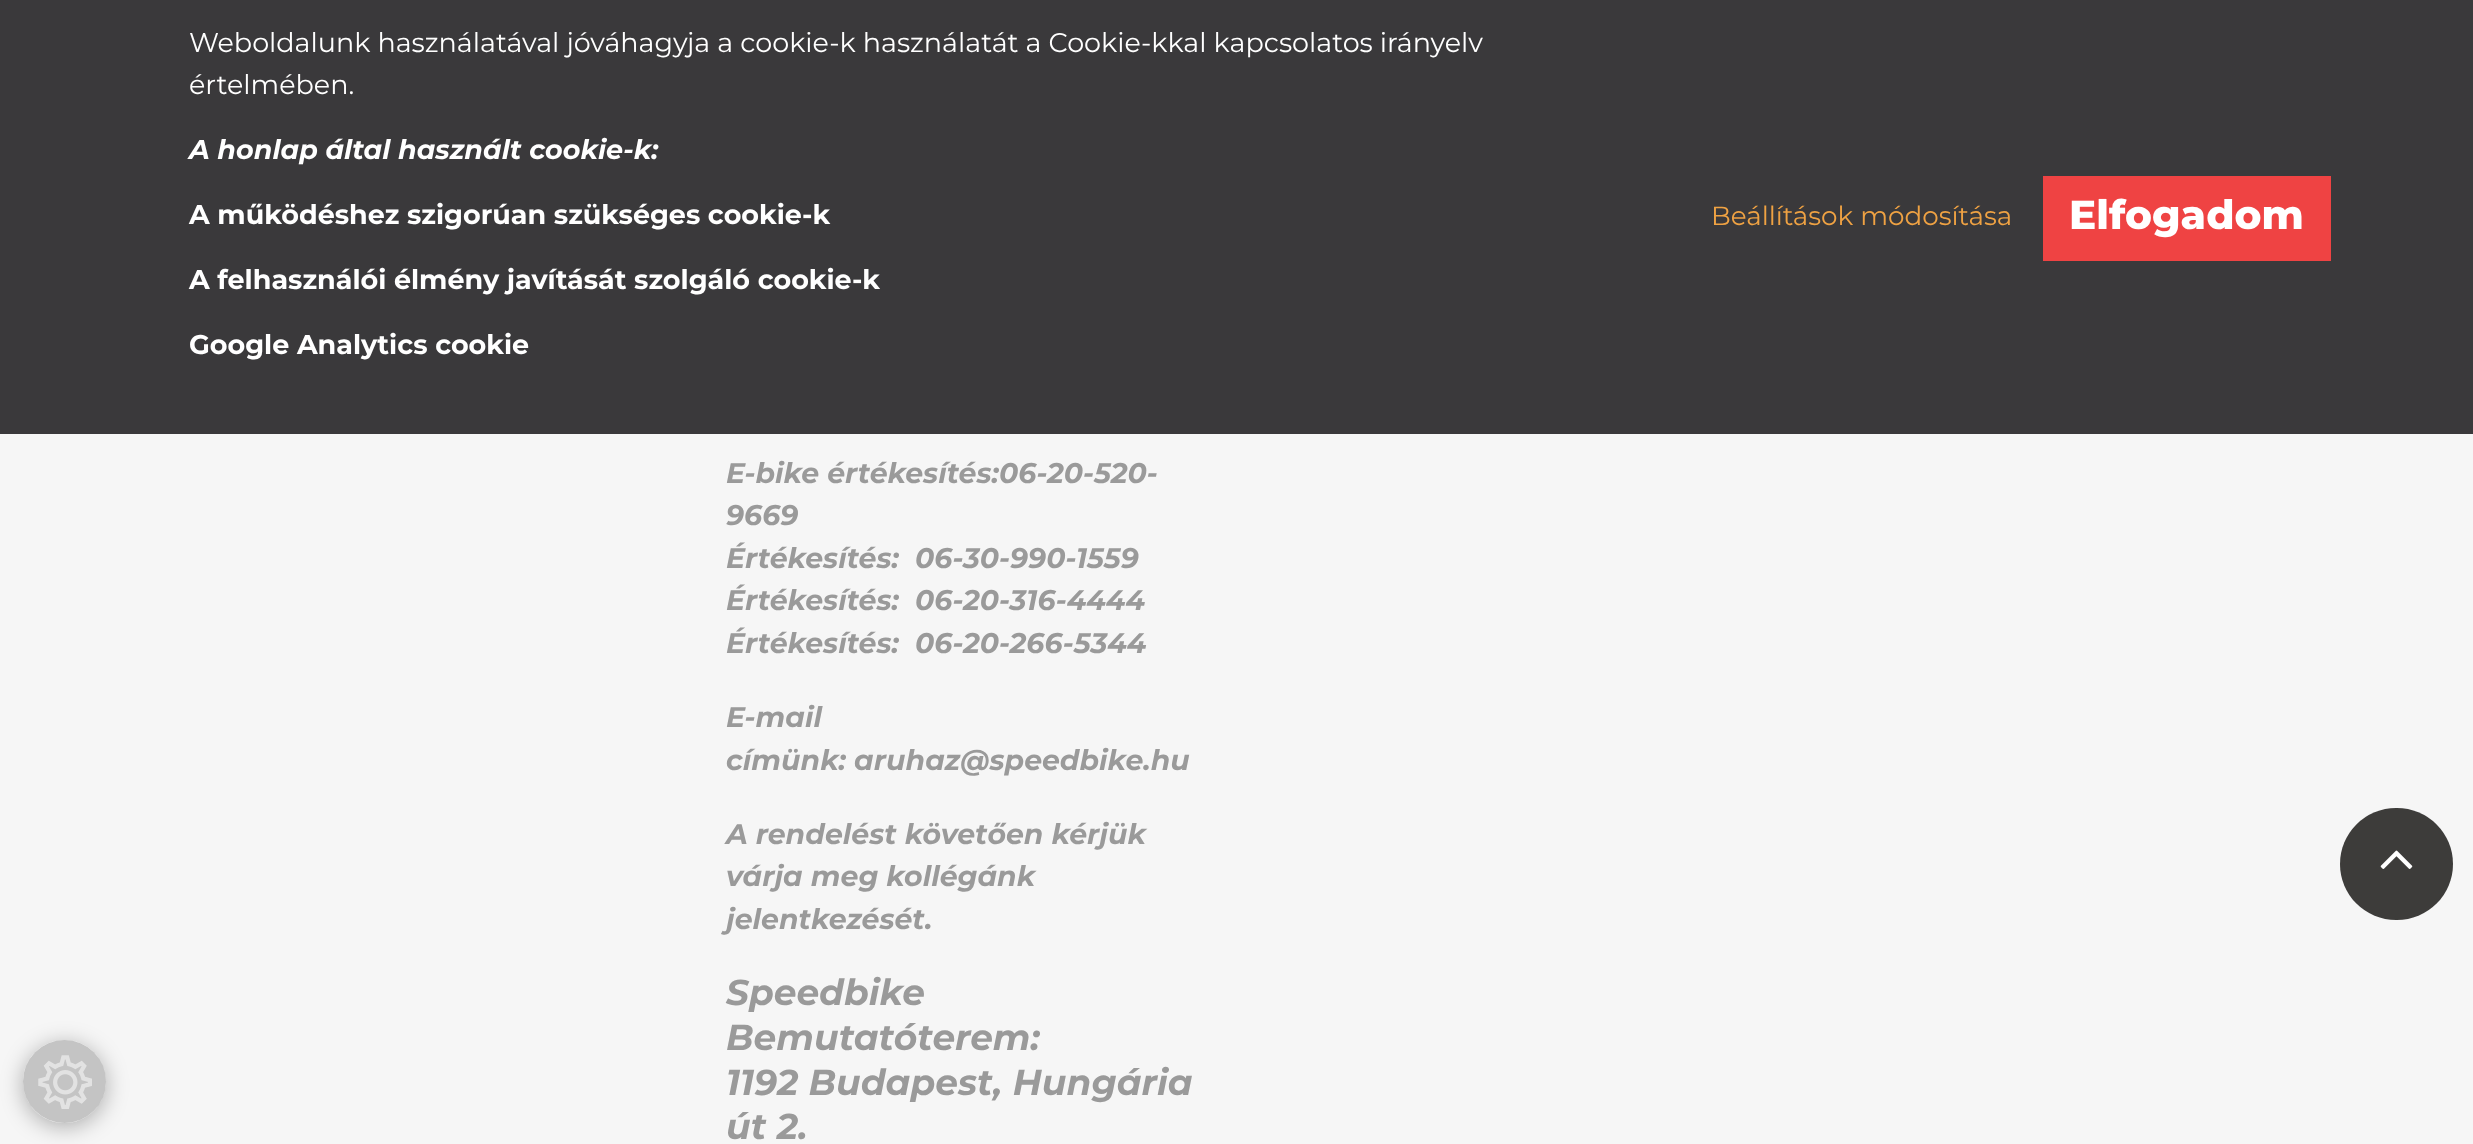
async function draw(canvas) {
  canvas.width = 2473
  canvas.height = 1144
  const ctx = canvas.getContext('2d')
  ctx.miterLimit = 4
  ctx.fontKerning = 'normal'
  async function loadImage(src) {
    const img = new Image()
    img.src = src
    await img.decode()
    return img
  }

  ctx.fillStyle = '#f6f6f6'
  ctx.fillRect(0, 0, 2473, 1144)
  ctx.fillStyle = '#3a393b'
  ctx.fillRect(0, 0, 2473, 434)
  ctx.font = '27px Montserrat'
  ctx.fillStyle = '#fff'
  ctx.fillText('Weboldalunk használatával jóváhagyja a cookie-k használatát a Cookie-kkal kapcsolatos irányelv', 189, 52)
  ctx.fillText('értelmében.', 189, 94)
  ctx.font = 'italic bold 27px Montserrat'
  ctx.fillText('A honlap által használt cookie-k:', 189, 159)
  ctx.font = 'bold 27px Montserrat'
  ctx.fillText('A működéshez szigorúan szükséges cookie-k', 189, 224)
  ctx.fillText('A felhasználói élmény javítását szolgáló cookie-k', 189, 289)
  ctx.fillText('Google Analytics cookie', 189, 354)
  ctx.font = '26.25px Montserrat'
  ctx.fillStyle = '#efa243'
  ctx.fillText('Beállítások módosítása', 1711, 225)
  ctx.fillStyle = '#ef4343'
  ctx.fillRect(2043, 176, 288, 85)
  ctx.font = '800 40.5px Montserrat'
  ctx.fillStyle = '#fff'
  ctx.fillText('Elfogadom', 2069, 229)
  ctx.save()
  ctx.beginPath()
  ctx.moveTo(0, 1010)
  ctx.lineTo(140, 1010)
  ctx.lineTo(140, 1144)
  ctx.lineTo(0, 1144)
  ctx.closePath()
  ctx.moveTo(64.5, 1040)
  ctx.bezierCurveTo(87.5, 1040, 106, 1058.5, 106, 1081.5)
  ctx.bezierCurveTo(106, 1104.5, 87.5, 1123, 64.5, 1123)
  ctx.bezierCurveTo(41.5, 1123, 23, 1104.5, 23, 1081.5)
  ctx.bezierCurveTo(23, 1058.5, 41.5, 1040, 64.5, 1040)
  ctx.closePath()
  ctx.clip('evenodd')
  ctx.fillStyle = '#0000004d'
  ctx.filter = 'blur(11px)'
  ctx.beginPath()
  ctx.roundRect(23, 1044, 83, 83, 41.5)
  ctx.fill()
  ctx.filter = 'none'
  ctx.restore()
  ctx.fillStyle = '#4e4e4e4d'
  ctx.beginPath()
  ctx.arc(64.5, 1081.5, 41.5, 0, 2 * Math.PI)
  ctx.fill()
  ctx.drawImage(await loadImage('image0.png'), 38, 1055, 54, 54)
  ctx.font = 'italic bold 28.4px Montserrat'
  ctx.fillStyle = '#9a9a9a'
  ctx.fillText('E-bike értékesítés:06-20-520-', 726, 483)
  ctx.fillText('9669', 726, 525)
  ctx.fillText('Értékesítés:  06-30-990-1559', 726, 568)
  ctx.fillText('Értékesítés:  06-20-316-4444', 726, 610)
  ctx.fillText('Értékesítés:  06-20-266-5344', 726, 653)
  ctx.fillText('E-mail', 726, 727)
  ctx.fillText('címünk: aruhaz@speedbike.hu', 726, 770)
  ctx.fillText('A rendelést követően kérjük', 726, 844)
  ctx.fillText('várja meg kollégánk', 726, 886)
  ctx.fillText('jelentkezését.', 726, 929)
  ctx.font = 'italic bold 36px Montserrat'
  ctx.fillText('Speedbike', 726, 1005)
  ctx.fillText('Bemutatóterem:', 726, 1050)
  ctx.fillText('1192 Budapest, Hungária', 726, 1095)
  ctx.fillText('út 2.', 726, 1139)
  ctx.fillStyle = '#3d3c3a'
  ctx.beginPath()
  ctx.roundRect(2340, 808, 113, 112, 56)
  ctx.fill()
  ctx.drawImage(await loadImage('image1.png'), 2380, 850, 33, 19)
}

draw(document.querySelector('canvas'))
